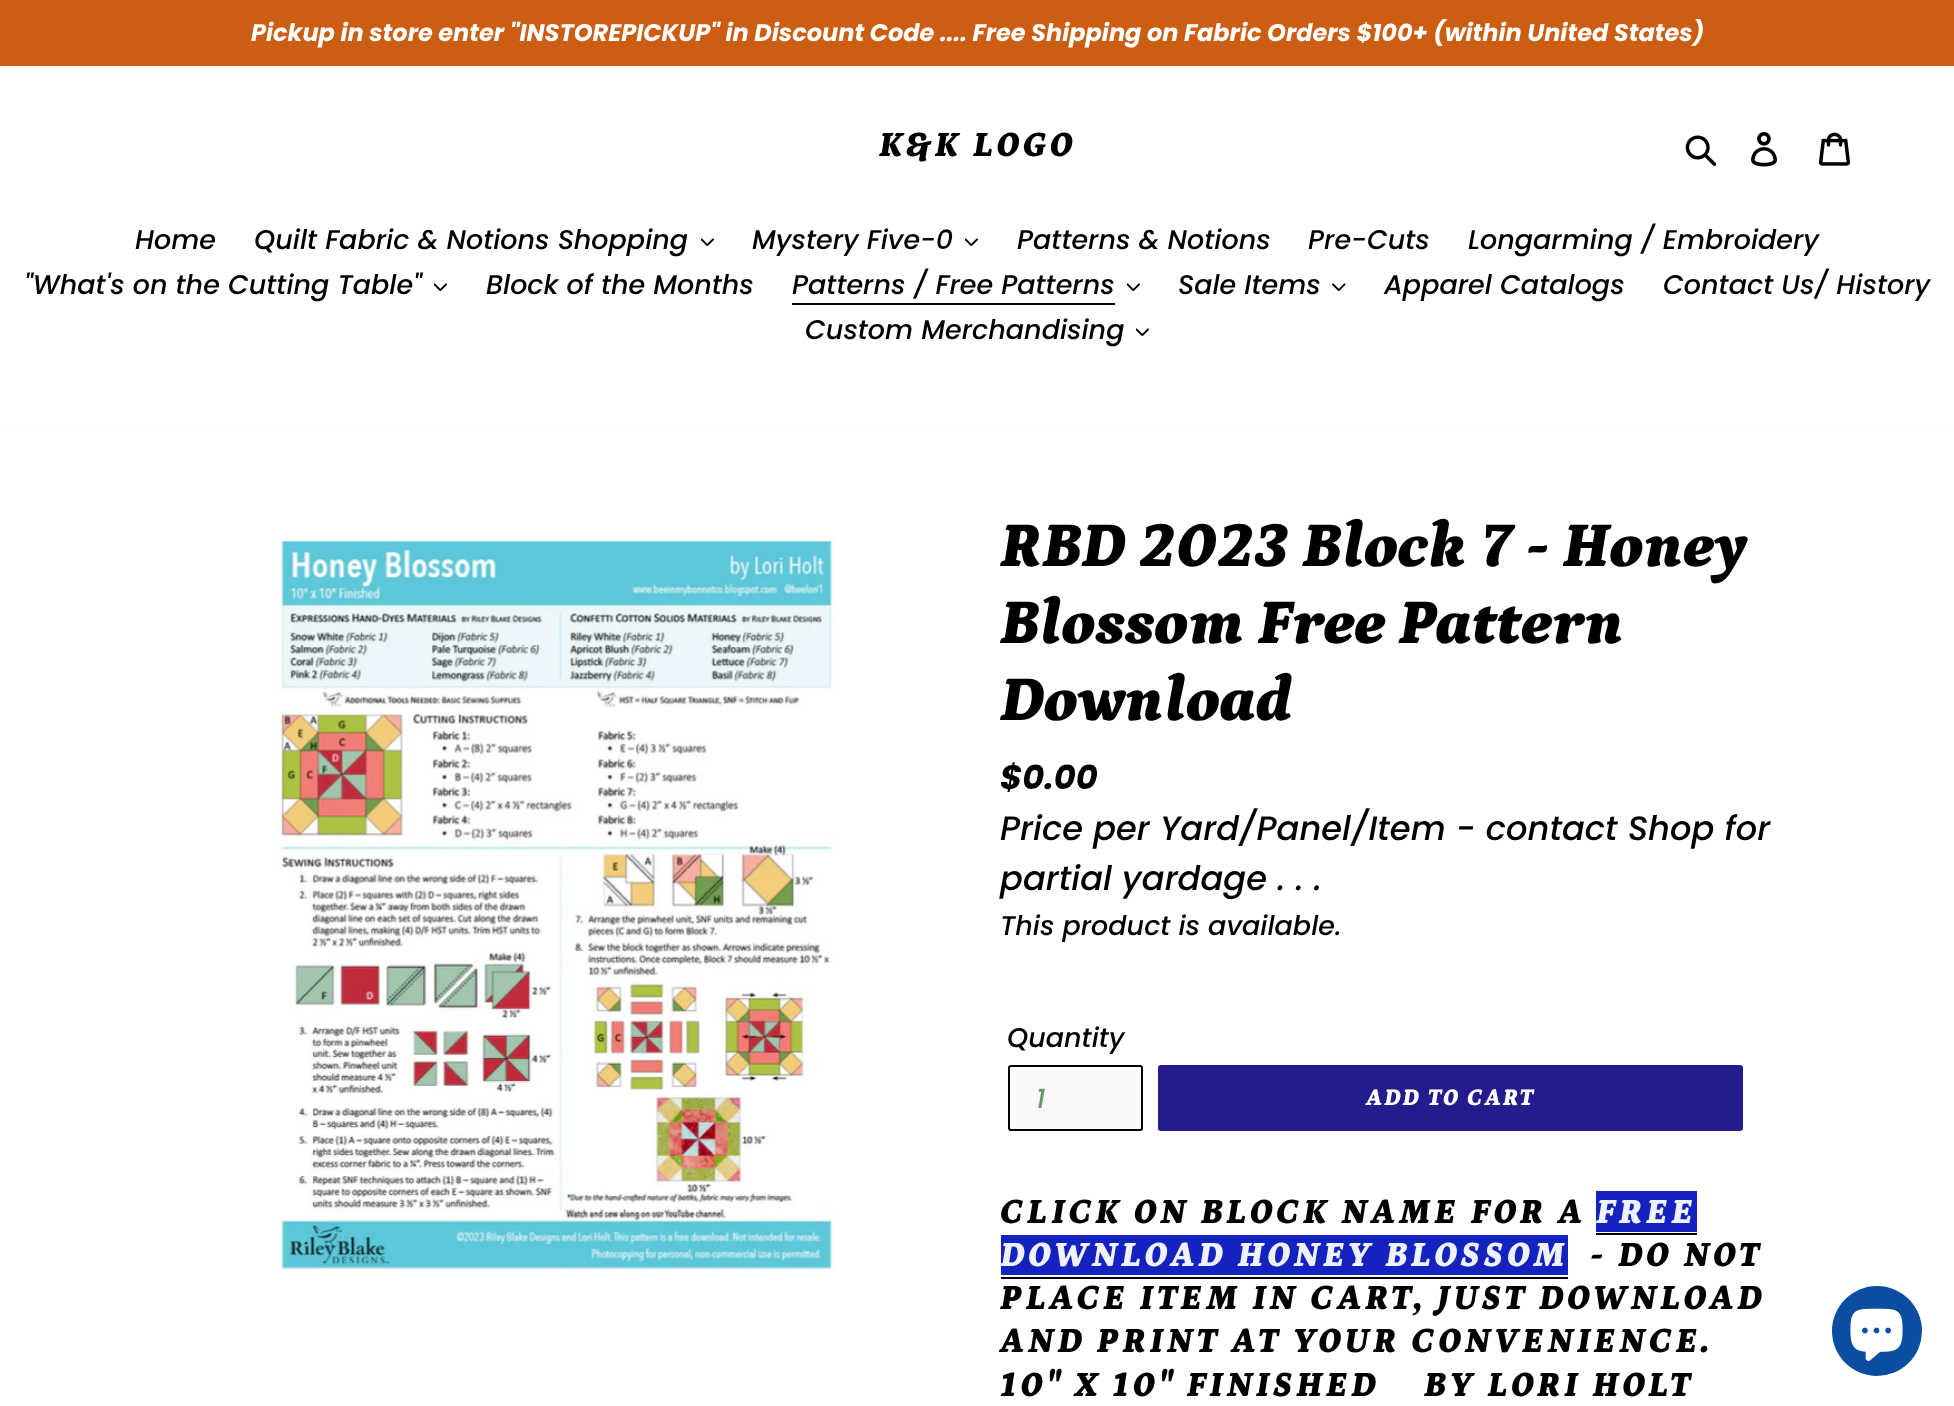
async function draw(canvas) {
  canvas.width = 1954
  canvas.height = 1406
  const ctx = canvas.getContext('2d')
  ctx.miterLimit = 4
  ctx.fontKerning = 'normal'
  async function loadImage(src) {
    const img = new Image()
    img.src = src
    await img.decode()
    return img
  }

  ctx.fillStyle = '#fff'
  ctx.fillRect(0, 0, 1954, 1406)
  ctx.fillStyle = '#cc5e14'
  ctx.fillRect(0, 0, 1954, 66)
  ctx.font = 'italic bold 24px Poppins'
  ctx.fillStyle = '#fff'
  ctx.fillText('Pickup in store enter "INSTOREPICKUP" in Discount Code .... Free Shipping on Fabric Orders $100+ (within United States)', 251, 41)
  ctx.letterSpacing = '3.6px'
  ctx.font = 'italic 900 36px Petrona'
  ctx.fillStyle = '#000'
  ctx.fillText('K&K LOGO', 879, 156)
  ctx.drawImage(await loadImage('image0.png'), 1685, 135, 32, 32)
  ctx.drawImage(await loadImage('image1.png'), 1751, 132, 26, 35)
  ctx.drawImage(await loadImage('image2.png'), 1818, 132, 32, 34)
  ctx.fillStyle = '#fafdff'
  ctx.fillRect(0, 425, 1954, 2)
  ctx.letterSpacing = '0px'
  ctx.font = 'italic 500 27px Poppins'
  ctx.fillStyle = '#000'
  ctx.fillText('Home', 135, 249)
  ctx.fillText('Quilt Fabric & Notions Shopping', 254, 249)
  ctx.drawImage(await loadImage('image3.png'), 701, 238, 13, 8)
  ctx.fillText('Mystery Five-0', 752, 249)
  ctx.drawImage(await loadImage('image3.png'), 965, 238, 13, 8)
  ctx.fillText('Patterns & Notions', 1017, 249)
  ctx.fillText('Pre-Cuts', 1308, 249)
  ctx.fillText('Longarming / Embroidery', 1468, 249)
  ctx.fillText('"What\'s on the Cutting Table"', 24, 294)
  ctx.drawImage(await loadImage('image3.png'), 434, 283, 13, 8)
  ctx.fillText('Block of the Months', 486, 294)
  ctx.fillText('Patterns / Free Patterns', 792, 294)
  ctx.fillRect(792, 303, 323, 2)
  ctx.drawImage(await loadImage('image3.png'), 1127, 283, 13, 8)
  ctx.fillText('Sale Items', 1178, 294)
  ctx.drawImage(await loadImage('image4.png'), 1332, 283, 14, 8)
  ctx.fillText('Apparel Catalogs', 1384, 294)
  ctx.fillText('Contact Us/ History', 1663, 294)
  ctx.fillText('Custom Merchandising', 805, 339)
  ctx.drawImage(await loadImage('image3.png'), 1136, 328, 13, 8)
  ctx.drawImage(await loadImage('image5.png'), 278, 538, 557, 732)
  ctx.font = 'italic 900 64.5px Petrona'
  ctx.fillText('RBD 2023 Block 7 - Honey', 1000, 566)
  ctx.fillText('Blossom Free Pattern', 1000, 643)
  ctx.fillText('Download', 1000, 720)
  ctx.font = 'italic bold 33.75px Poppins'
  ctx.fillText('$0.00', 1000, 789)
  ctx.font = 'italic 500 33.75px Poppins'
  ctx.fillText('Price per Yard/Panel/Item - contact Shop for', 1000, 840)
  ctx.fillText('partial yardage . . .', 1000, 890)
  ctx.font = 'italic 500 27px Poppins'
  ctx.fillText('This product is available.', 1000, 935)
  ctx.fillText('Quantity', 1007, 1047)
  ctx.fillStyle = '#fafafa'
  ctx.beginPath()
  ctx.roundRect(1009, 1066, 133, 64, 2)
  ctx.fill()
  ctx.strokeStyle = '#000'
  ctx.lineWidth = 2
  ctx.stroke()
  ctx.fillStyle = '#6b9767'
  ctx.fillText('1', 1036, 1108)
  ctx.fillStyle = '#221c8d'
  ctx.beginPath()
  ctx.roundRect(1158, 1065, 585, 66, 3)
  ctx.fill()
  ctx.letterSpacing = '2px'
  ctx.font = 'italic 900 24px Petrona'
  ctx.fillStyle = '#fff'
  ctx.fillText('ADD TO CART', 1366, 1105)
  ctx.letterSpacing = '3.6px'
  ctx.font = 'italic 900 36px Petrona'
  ctx.fillStyle = '#000'
  ctx.fillText('CLICK ON BLOCK NAME FOR A', 1000, 1223)
  ctx.fillStyle = '#1422c0'
  ctx.fillRect(1596, 1191, 101, 41)
  ctx.fillStyle = '#f0f2f9'
  ctx.fillText('FREE', 1596, 1223)
  ctx.fillStyle = '#000'
  ctx.fillRect(1596, 1233, 101, 2)
  ctx.fillStyle = '#1422c0'
  ctx.fillRect(1001, 1235, 567, 40)
  ctx.fillStyle = '#f0f2f9'
  ctx.fillText('DOWNLOAD HONEY BLOSSOM', 1000, 1266)
  ctx.fillStyle = '#000'
  ctx.fillRect(1001, 1277, 567, 2)
  ctx.fillText('- DO NOT', 1590, 1266)
  ctx.fillText('PLACE ITEM IN CART, JUST DOWNLOAD', 1000, 1309)
  ctx.fillText('AND PRINT AT YOUR CONVENIENCE.', 1000, 1352)
  ctx.fillText('10" X 10" FINISHED    BY LORI HOLT', 1000, 1396)
  ctx.fillStyle = '#0a4ea1'
  ctx.beginPath()
  ctx.arc(1877, 1331, 45, 0, 2 * Math.PI)
  ctx.fill()
  ctx.drawImage(await loadImage('image6.png'), 1850, 1308, 53, 53)
}

draw(document.querySelector('canvas'))
